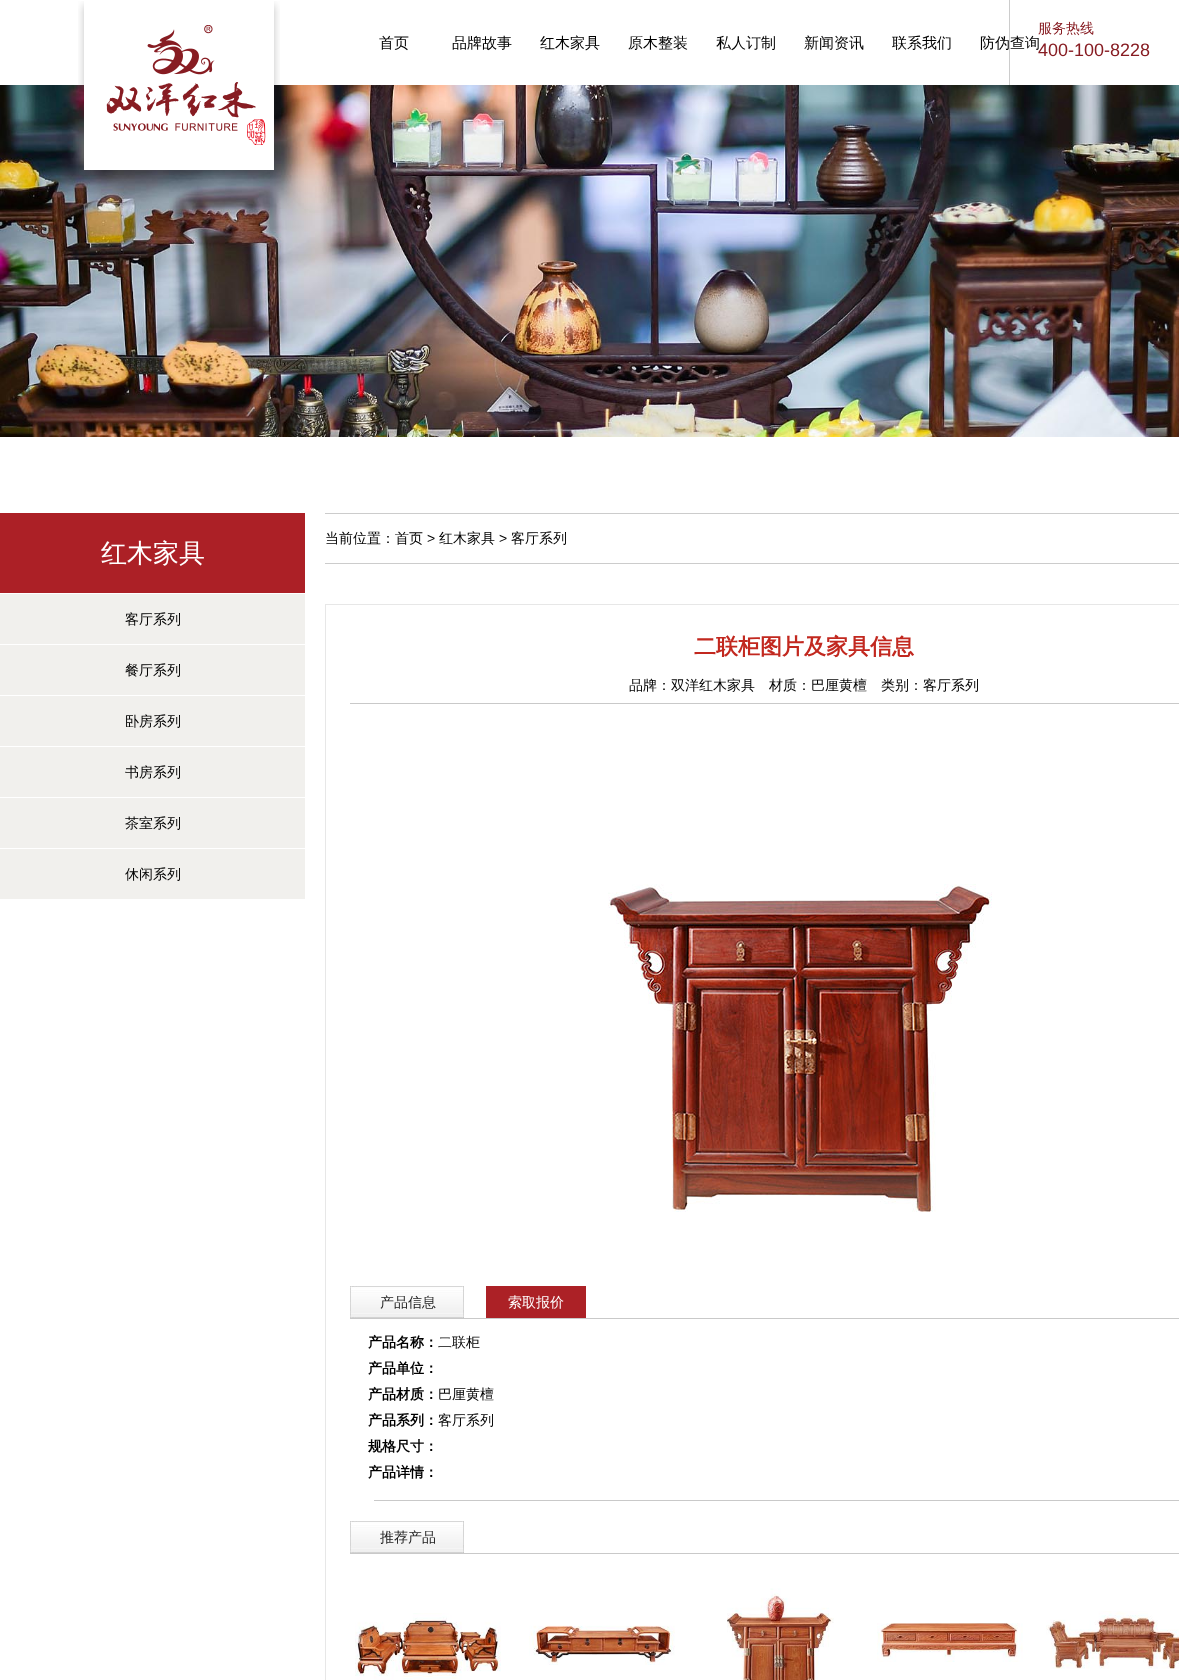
async function draw(canvas) {
  canvas.width = 1179
  canvas.height = 1680
  const ctx = canvas.getContext('2d')
  ctx.miterLimit = 4
  ctx.fontKerning = 'normal'
  async function loadImage(src) {
    const img = new Image()
    img.src = src
    await img.decode()
    return img
  }

  ctx.fillStyle = '#fff'
  ctx.fillRect(0, 0, 1179, 1680)
  ctx.drawImage(await loadImage('image1.png'), 0, 85, 1179, 352)
  ctx.drawImage(await loadImage('image0.png'), 78, 1, 202, 178)
  ctx.font = '500 15px WenQuanYi Zen Hei'
  ctx.fillStyle = '#000'
  ctx.fillText('首页', 379, 48)
  ctx.fillText('品牌故事', 452, 48)
  ctx.fillText('红木家具', 540, 48)
  ctx.fillText('原木整装', 628, 48)
  ctx.fillText('私人订制', 716, 48)
  ctx.fillText('新闻资讯', 804, 48)
  ctx.fillText('联系我们', 892, 48)
  ctx.fillText('防伪查询', 980, 48)
  ctx.fillStyle = '#ccc'
  ctx.fillRect(1009, 0, 1, 85)
  ctx.font = '500 14px WenQuanYi Zen Hei'
  ctx.fillStyle = '#871c22'
  ctx.fillText('服务热线', 1038, 33)
  ctx.font = '18px Liberation Sans'
  ctx.fillText('400-100-8228', 1038, 56)
  ctx.fillStyle = '#ac2026'
  ctx.fillRect(0, 513, 305, 80)
  ctx.font = '500 26px WenQuanYi Zen Hei'
  ctx.fillStyle = '#fff'
  ctx.fillText('红木家具', 101, 562)
  ctx.fillStyle = '#f1f0ed'
  ctx.fillRect(0, 594, 305, 50)
  ctx.font = '500 14px WenQuanYi Zen Hei'
  ctx.fillStyle = '#000'
  ctx.fillText('客厅系列', 125, 624)
  ctx.fillStyle = '#f1f0ed'
  ctx.fillRect(0, 645, 305, 50)
  ctx.fillStyle = '#000'
  ctx.fillText('餐厅系列', 125, 675)
  ctx.fillStyle = '#f1f0ed'
  ctx.fillRect(0, 696, 305, 50)
  ctx.fillStyle = '#000'
  ctx.fillText('卧房系列', 125, 726)
  ctx.fillStyle = '#f1f0ed'
  ctx.fillRect(0, 747, 305, 50)
  ctx.fillStyle = '#000'
  ctx.fillText('书房系列', 125, 777)
  ctx.fillStyle = '#f1f0ed'
  ctx.fillRect(0, 798, 305, 50)
  ctx.fillStyle = '#000'
  ctx.fillText('茶室系列', 125, 828)
  ctx.fillStyle = '#f1f0ed'
  ctx.fillRect(0, 849, 305, 50)
  ctx.fillStyle = '#000'
  ctx.fillText('休闲系列', 125, 879)
  ctx.fillStyle = '#ccc'
  ctx.fillRect(325, 513, 854, 1)
  ctx.fillRect(325, 563, 854, 1)
  ctx.fillStyle = '#000'
  ctx.fillText('当前位置：首页', 325, 543)
  ctx.font = '14px Liberation Sans'
  ctx.fillText('>', 427, 543)
  ctx.font = '500 14px WenQuanYi Zen Hei'
  ctx.fillText('红木家具', 439, 543)
  ctx.font = '14px Liberation Sans'
  ctx.fillText('>', 499, 543)
  ctx.font = '500 14px WenQuanYi Zen Hei'
  ctx.fillText('客厅系列', 511, 543)
  ctx.strokeStyle = '#e7e7e7'
  ctx.strokeRect(325.5, 604.5, 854, 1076)
  ctx.font = 'bold 22px WenQuanYi Zen Hei'
  ctx.fillStyle = '#c2281f'
  ctx.fillText('二联柜图片及家具信息', 694, 654)
  ctx.fillStyle = '#c9c9c9'
  ctx.fillRect(350, 703, 829, 1)
  ctx.font = '500 14px WenQuanYi Zen Hei'
  ctx.fillStyle = '#000'
  ctx.fillText('品牌：双洋红木家具　材质：巴厘黄檀　类别：客厅系列', 629, 690)
  ctx.drawImage(await loadImage('image2.png'), 608, 884, 384, 328)
  ctx.drawImage(await loadImage('image3.png'), 350, 1286, 114, 32)
  ctx.fillStyle = '#c9c9c9'
  ctx.fillRect(350, 1318, 829, 1)
  ctx.fillStyle = '#222'
  ctx.fillText('产品信息', 380, 1307)
  ctx.fillStyle = '#ac2126'
  ctx.fillRect(486, 1286, 100, 32)
  ctx.fillStyle = '#fff'
  ctx.fillText('索取报价', 508, 1307)
  ctx.font = 'bold 14px WenQuanYi Zen Hei'
  ctx.fillStyle = '#000'
  ctx.fillText('产品名称：', 368, 1347)
  ctx.font = '500 14px WenQuanYi Zen Hei'
  ctx.fillText('二联柜', 438, 1347)
  ctx.font = 'bold 14px WenQuanYi Zen Hei'
  ctx.fillText('产品单位：', 368, 1373)
  ctx.fillText('产品材质：', 368, 1399)
  ctx.font = '500 14px WenQuanYi Zen Hei'
  ctx.fillText('巴厘黄檀', 438, 1399)
  ctx.font = 'bold 14px WenQuanYi Zen Hei'
  ctx.fillText('产品系列：', 368, 1425)
  ctx.font = '500 14px WenQuanYi Zen Hei'
  ctx.fillText('客厅系列', 438, 1425)
  ctx.font = 'bold 14px WenQuanYi Zen Hei'
  ctx.fillText('规格尺寸：', 368, 1451)
  ctx.fillText('产品详情：', 368, 1477)
  ctx.fillStyle = '#c9c9c9'
  ctx.fillRect(374, 1500, 805, 1)
  ctx.drawImage(await loadImage('image3.png'), 350, 1521, 114, 32)
  ctx.fillRect(350, 1553, 829, 1)
  ctx.font = '500 14px WenQuanYi Zen Hei'
  ctx.fillStyle = '#222'
  ctx.fillText('推荐产品', 380, 1542)
  ctx.drawImage(await loadImage('image4.png'), 355, 1613, 146, 67)
  ctx.drawImage(await loadImage('image5.png'), 529, 1625, 146, 40)
  ctx.drawImage(await loadImage('image6.png'), 727, 1588, 107, 92)
  ctx.drawImage(await loadImage('image7.png'), 877, 1623, 146, 39)
  ctx.drawImage(await loadImage('image8.png'), 1046, 1611, 133, 58)
}

draw(document.querySelector('canvas'))
